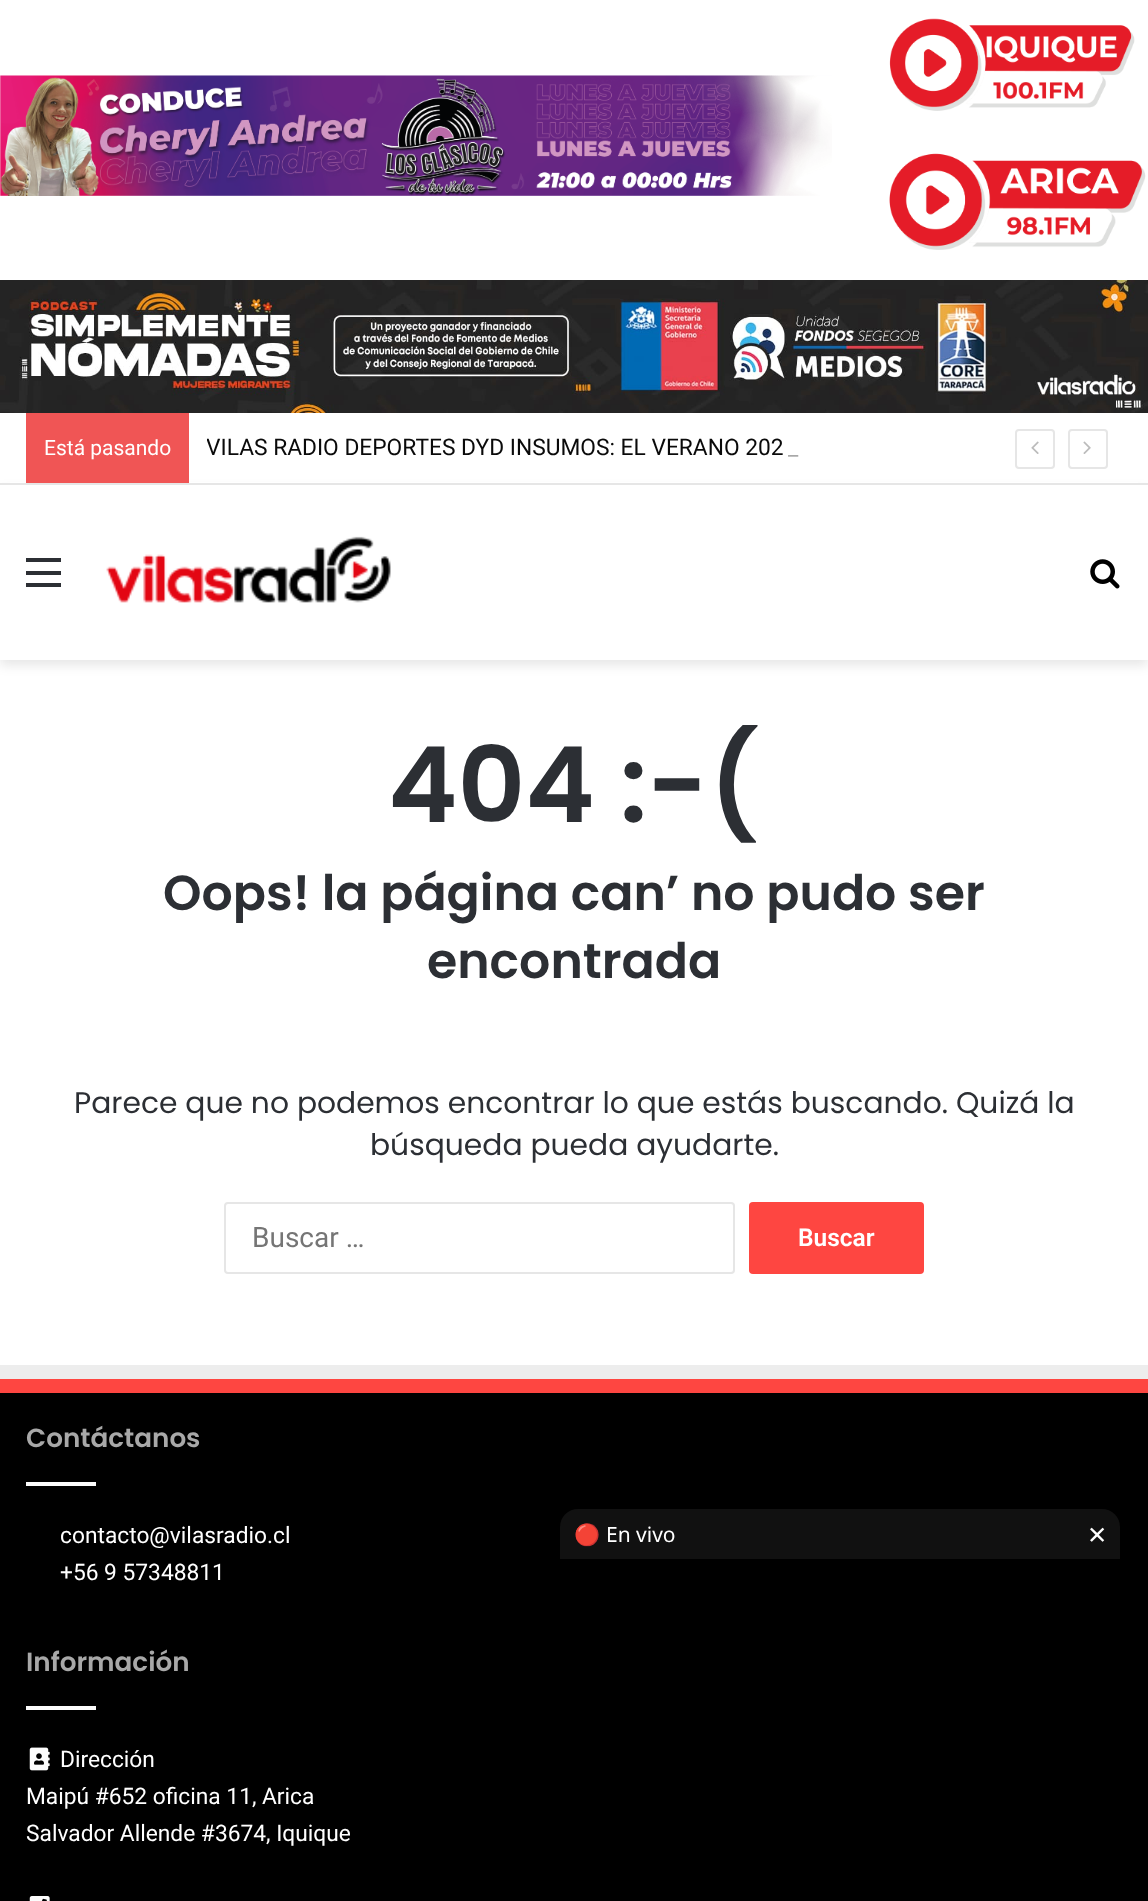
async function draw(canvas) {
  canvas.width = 1148
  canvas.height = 1901
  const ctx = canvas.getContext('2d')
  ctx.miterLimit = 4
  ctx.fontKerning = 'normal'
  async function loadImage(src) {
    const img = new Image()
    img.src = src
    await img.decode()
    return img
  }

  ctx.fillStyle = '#fff'
  ctx.fillRect(0, 0, 1148, 1901)
  ctx.drawImage(await loadImage('image0.png'), 889, 18, 246, 93)
  ctx.drawImage(await loadImage('image1.png'), 0, 75, 832, 121)
  ctx.drawImage(await loadImage('image2.png'), 889, 153, 257, 97)
  ctx.drawImage(await loadImage('image3.png'), 0, 280, 1148, 133)
  ctx.fillStyle = '#0000001a'
  ctx.filter = 'blur(6px)'
  ctx.beginPath()
  ctx.rect(0, 490, 1148, 175)
  ctx.fill()
  ctx.filter = 'none'
  ctx.fillStyle = '#fff'
  ctx.fillRect(10, 482, 1128, 1)
  ctx.fillStyle = '#e6e6e6'
  ctx.fillRect(0, 483, 1148, 2)
  ctx.fillStyle = '#f05555'
  ctx.fillRect(26, 413, 163, 70)
  ctx.font = '21px Roboto'
  ctx.fillStyle = '#fff'
  ctx.fillText('Está pasando', 44, 455)
  ctx.save()
  ctx.beginPath()
  ctx.rect(207, 413, 792, 70)
  ctx.clip()
  ctx.font = '22.75px Roboto'
  ctx.fillStyle = '#0a0a0a'
  ctx.fillText('VILAS RADIO DEPORTES DYD INSUMOS: EL VERANO 202', 206, 455)
  ctx.restore()
  ctx.font = '22.75px Roboto'
  ctx.fillStyle = '#a8a8a8'
  ctx.fillText('_', 788, 455)
  ctx.beginPath()
  ctx.roundRect(1016, 430, 38, 38, 3)
  ctx.strokeStyle = '#e6e6e6'
  ctx.lineWidth = 2
  ctx.stroke()
  ctx.drawImage(await loadImage('image4.png'), 1031, 441, 8, 13)
  ctx.beginPath()
  ctx.roundRect(1069, 430, 38, 38, 3)
  ctx.stroke()
  ctx.drawImage(await loadImage('image5.png'), 1083, 441, 8, 13)
  ctx.fillStyle = '#fff'
  ctx.fillRect(0, 485, 1148, 175)
  ctx.fillStyle = '#2c2f34'
  ctx.fillRect(26, 571, 35, 4)
  ctx.fillRect(26, 558, 35, 4)
  ctx.fillRect(26, 583, 35, 4)
  ctx.drawImage(await loadImage('image6.png'), 106, 536, 285, 67)
  ctx.drawImage(await loadImage('image7.png'), 1090, 559, 30, 30)
  ctx.font = '600 105px Poppins'
  ctx.fillText('404 :-(', 388, 822)
  ctx.font = '600 49px Poppins'
  ctx.fillText('Oops! la página can’ no pudo ser', 163, 910)
  ctx.fillText('encontrada', 427, 978)
  ctx.font = '29.75px Poppins'
  ctx.fillText('Parece que no podemos encontrar lo que estás buscando. Quizá la', 74, 1113)
  ctx.fillText('búsqueda pueda ayudarte.', 370, 1155)
  ctx.beginPath()
  ctx.roundRect(225, 1203, 509, 70, 3)
  ctx.stroke()
  ctx.font = '28px Roboto'
  ctx.fillStyle = '#757575'
  ctx.fillText('Buscar …', 252, 1247)
  ctx.fillStyle = '#fe4641'
  ctx.beginPath()
  ctx.roundRect(749, 1202, 175, 72, 4)
  ctx.fill()
  ctx.font = '600 24.5px Roboto'
  ctx.fillStyle = '#fff'
  ctx.fillText('Buscar', 798, 1246)
  ctx.fillStyle = '#000'
  ctx.fillRect(0, 1393, 1148, 508)
  ctx.fillStyle = '#ededed'
  ctx.fillRect(0, 1365, 1148, 14)
  ctx.fillStyle = '#fe4641'
  ctx.fillRect(0, 1379, 1148, 14)
  ctx.font = '600 26.25px Poppins'
  ctx.fillStyle = '#a8a8a8'
  ctx.fillText('Contáctanos', 26, 1447)
  ctx.fillStyle = '#fcfcfc'
  ctx.fillRect(26, 1482, 70, 4)
  ctx.font = '22.75px Roboto'
  ctx.fillStyle = '#fff'
  ctx.fillText('contacto@vilasradio.cl', 60, 1543)
  ctx.fillText('+56 9 57348811', 60, 1580)
  ctx.font = '600 26.25px Poppins'
  ctx.fillStyle = '#a8a8a8'
  ctx.fillText('Información', 26, 1671)
  ctx.fillStyle = '#fcfcfc'
  ctx.fillRect(26, 1706, 70, 4)
  ctx.drawImage(await loadImage('image8.png'), 29, 1747, 21, 24)
  ctx.font = '22.75px Roboto'
  ctx.fillStyle = '#fff'
  ctx.fillText('Dirección', 60, 1767)
  ctx.fillText('Maipú #652 oficina 11, Arica', 26, 1804)
  ctx.fillText('Salvador Allende #3674, Iquique', 26, 1841)
  ctx.drawImage(await loadImage('image9.png'), 29, 1896, 21, 5)
  ctx.fillStyle = '#111'
  ctx.beginPath()
  ctx.roundRect(560, 1509, 560, 50, [18, 18, 0, 0])
  ctx.fill()
  ctx.font = '21px Noto Color Emoji'
  ctx.fillStyle = '#fff'
  ctx.fillText('🔴', 574, 1542)
  ctx.font = '21px Noto Sans'
  ctx.fillText('En vivo', 606, 1542)
  ctx.font = '32px Noto Sans'
  ctx.fillText('×', 1088, 1546)
}

draw(document.querySelector('canvas'))
